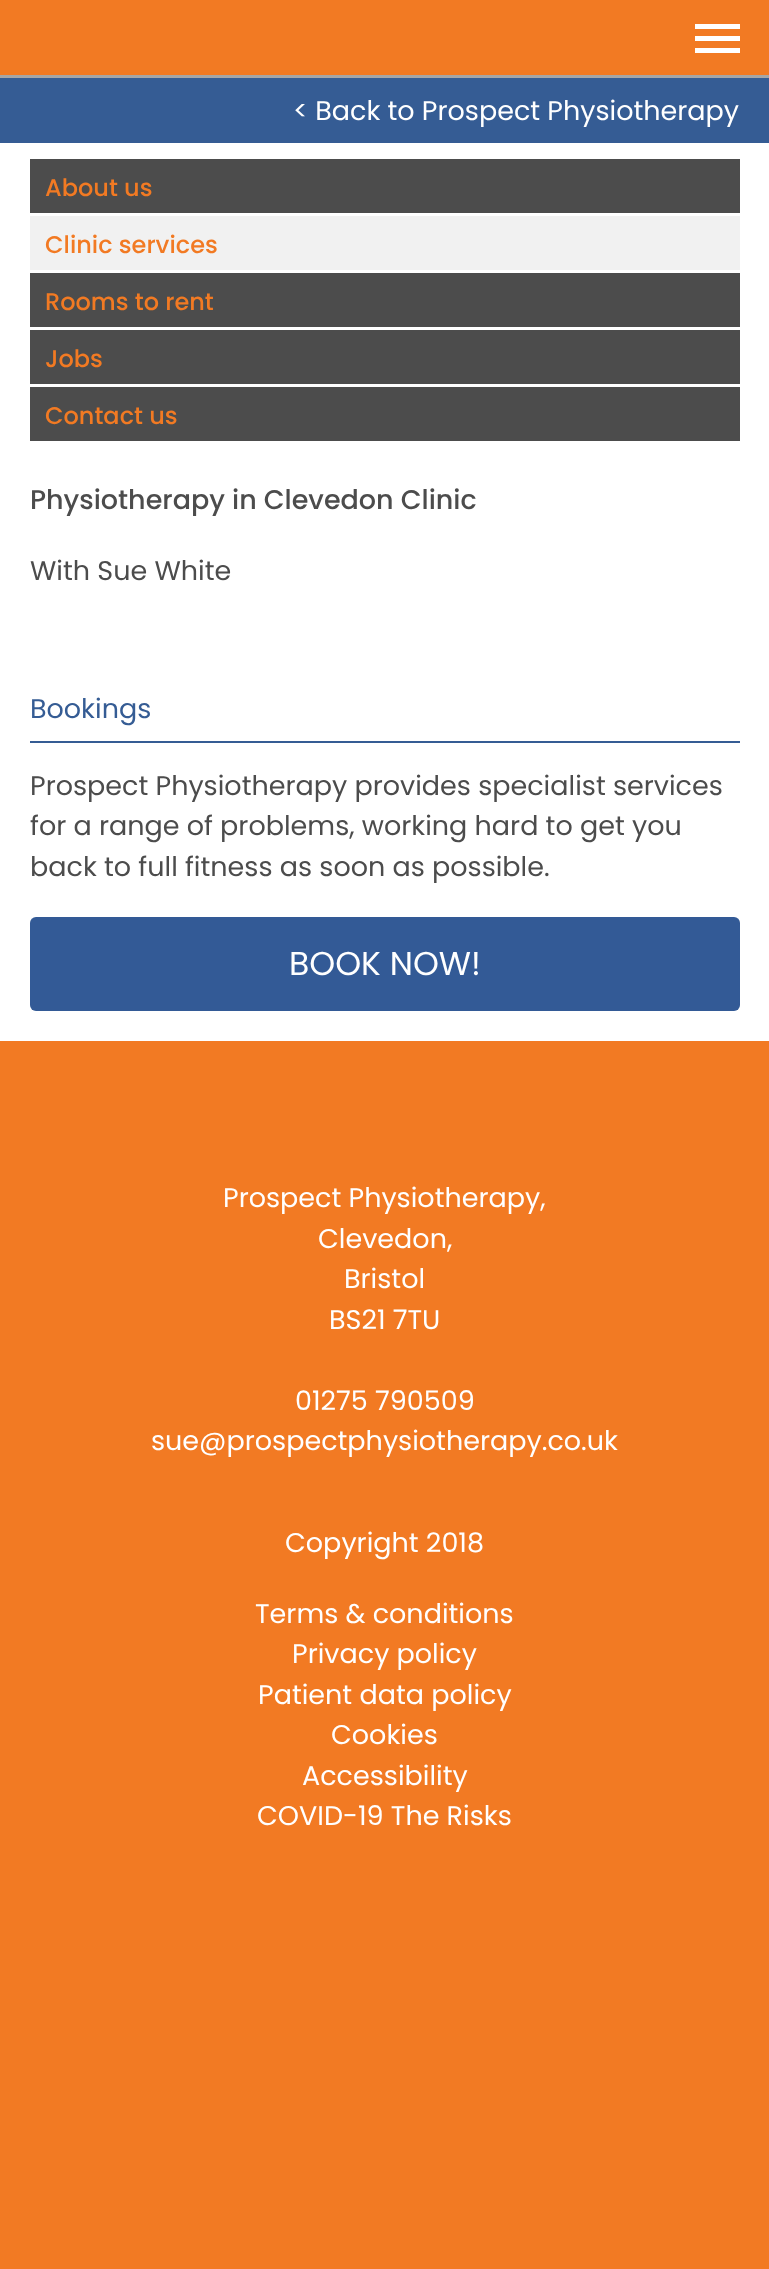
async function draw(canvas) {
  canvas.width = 769
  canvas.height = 2269
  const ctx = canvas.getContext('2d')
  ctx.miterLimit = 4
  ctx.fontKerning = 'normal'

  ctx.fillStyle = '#fff'
  ctx.fillRect(0, 0, 769, 2269)
  ctx.fillStyle = '#f27a23'
  ctx.fillRect(0, 0, 769, 75)
  ctx.fillStyle = '#a6a6a6'
  ctx.beginPath()
  ctx.moveTo(0, 75)
  ctx.lineTo(0, 78)
  ctx.lineTo(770, 78)
  ctx.lineTo(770, 3)
  ctx.lineTo(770, 75)
  ctx.closePath()
  ctx.fill()
  ctx.fillStyle = '#fff'
  ctx.fillRect(695, 36, 45, 5)
  ctx.fillRect(695, 24, 45, 5)
  ctx.fillRect(695, 48, 45, 5)
  ctx.fillStyle = '#355c94'
  ctx.fillRect(0, 78, 769, 65)
  ctx.font = '27px Poppins'
  ctx.fillStyle = '#fff'
  ctx.fillText('< Back to Prospect Physiotherapy', 293, 120)
  ctx.fillStyle = '#4c4c4c'
  ctx.fillRect(30, 159, 710, 54)
  ctx.font = '500 24px Poppins'
  ctx.fillStyle = '#f27a23'
  ctx.fillText('About us', 45, 196)
  ctx.fillStyle = '#f1f1f1'
  ctx.fillRect(30, 216, 710, 54)
  ctx.fillStyle = '#f27a23'
  ctx.fillText('Clinic services', 45, 253)
  ctx.fillStyle = '#4c4c4c'
  ctx.fillRect(30, 273, 710, 54)
  ctx.fillStyle = '#f27a23'
  ctx.fillText('Rooms to rent', 45, 310)
  ctx.fillStyle = '#4c4c4c'
  ctx.fillRect(30, 330, 710, 54)
  ctx.fillStyle = '#f27a23'
  ctx.fillText('Jobs', 45, 367)
  ctx.fillStyle = '#4c4c4c'
  ctx.fillRect(30, 387, 710, 54)
  ctx.fillStyle = '#f27a23'
  ctx.fillText('Contact us', 45, 424)
  ctx.font = '500 27px Poppins'
  ctx.fillStyle = '#4c4c4c'
  ctx.fillText('Physiotherapy in Clevedon Clinic', 30, 509)
  ctx.font = '27px Poppins'
  ctx.fillText('With Sue White', 30, 580)
  ctx.fillStyle = '#355c94'
  ctx.fillRect(30, 741, 710, 2)
  ctx.fillText('Bookings', 30, 718)
  ctx.fillStyle = '#4c4c4c'
  ctx.fillText('Prospect Physiotherapy provides specialist services', 30, 795)
  ctx.fillText('for a range of problems, working hard to get you', 30, 835)
  ctx.fillText('back to full fitness as soon as possible.', 30, 876)
  ctx.fillStyle = '#335a96'
  ctx.beginPath()
  ctx.roundRect(30, 917, 710, 94, 6)
  ctx.fill()
  ctx.font = '33px Poppins'
  ctx.fillStyle = '#fff'
  ctx.fillText('BOOK NOW!', 289, 975)
  ctx.fillStyle = '#f27a23'
  ctx.fillRect(0, 1041, 769, 1228)
  ctx.font = '27px Poppins'
  ctx.fillStyle = '#fff'
  ctx.fillText('Prospect Physiotherapy,', 223, 1207)
  ctx.fillText('Clevedon,', 318, 1248)
  ctx.fillText('Bristol', 344, 1288)
  ctx.fillText('BS21 7TU', 329, 1329)
  ctx.fillText('01275 790509', 295, 1410)
  ctx.fillText('sue@prospectphysiotherapy.co.uk', 151, 1450)
  ctx.fillText('Copyright 2018', 285, 1552)
  ctx.fillText('Terms & conditions', 255, 1623)
  ctx.fillText('Privacy policy', 292, 1663)
  ctx.fillText('Patient data policy', 258, 1704)
  ctx.fillText('Cookies', 331, 1744)
  ctx.fillText('Accessibility', 302, 1785)
  ctx.fillText('COVID-19 The Risks', 257, 1825)
}

draw(document.querySelector('canvas'))
